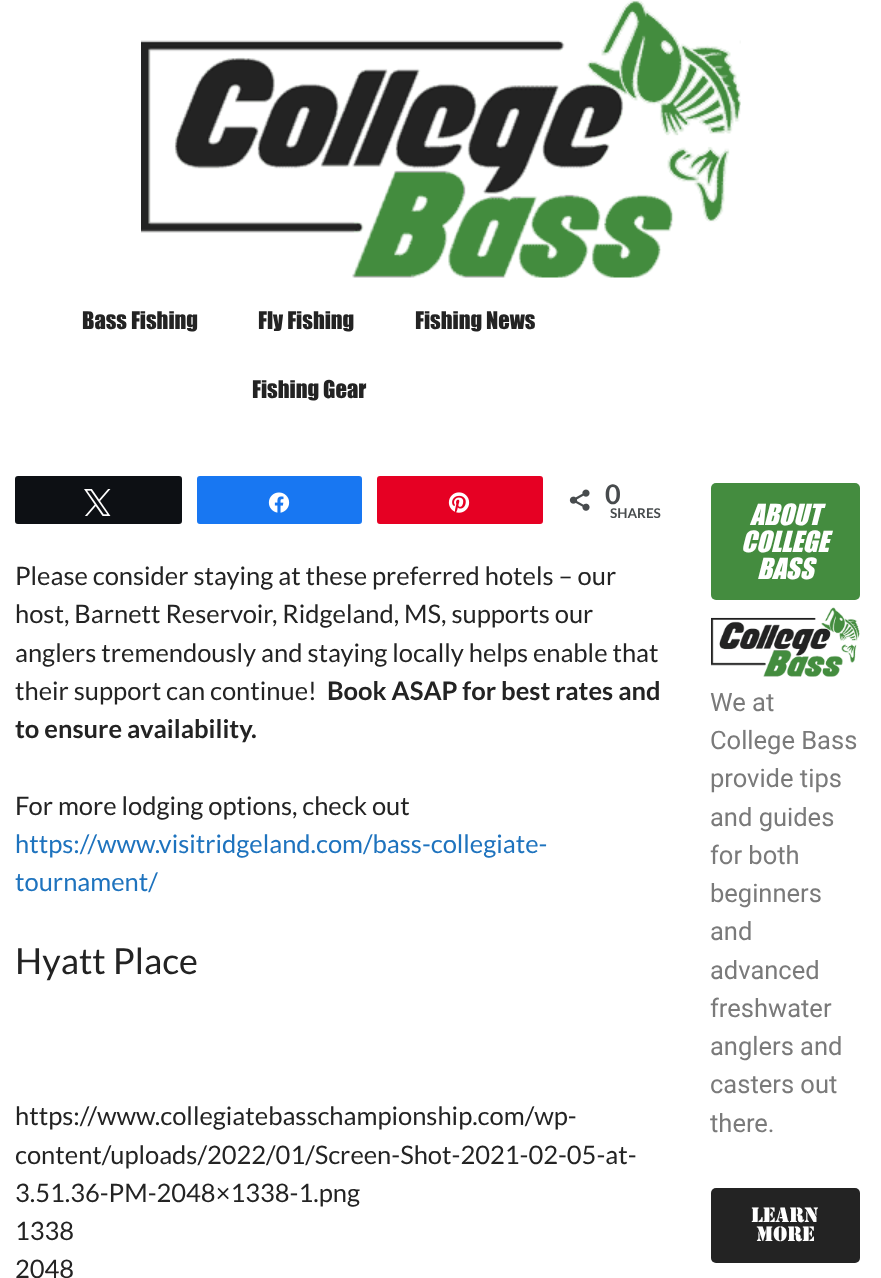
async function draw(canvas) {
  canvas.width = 881
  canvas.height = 1278
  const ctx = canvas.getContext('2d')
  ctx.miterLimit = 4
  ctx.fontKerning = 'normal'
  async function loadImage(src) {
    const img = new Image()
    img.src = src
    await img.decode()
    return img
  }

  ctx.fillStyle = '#fff'
  ctx.fillRect(0, 0, 881, 1278)
  ctx.drawImage(await loadImage('image0.png'), 141, 0, 600, 278)
  ctx.font = '22.5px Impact'
  ctx.fillStyle = '#232323'
  ctx.fillText('Bass Fishing', 82, 329)
  ctx.fillText('Fly Fishing', 258, 329)
  ctx.fillText('Fishing News', 415, 329)
  ctx.fillText('Fishing Gear', 252, 398)
  ctx.fillStyle = '#0d1014'
  ctx.beginPath()
  ctx.roundRect(16, 477, 165, 46, 2)
  ctx.fill()
  ctx.strokeStyle = '#0d1014'
  ctx.lineWidth = 2
  ctx.stroke()
  ctx.drawImage(await loadImage('image1.png'), 84, 489, 27, 27)
  ctx.fillStyle = '#1877f2'
  ctx.beginPath()
  ctx.roundRect(198, 477, 163, 46, 2)
  ctx.fill()
  ctx.strokeStyle = '#1877f2'
  ctx.stroke()
  ctx.drawImage(await loadImage('image2.png'), 268, 492, 22, 21)
  ctx.fillStyle = '#e60023'
  ctx.beginPath()
  ctx.roundRect(378, 477, 164, 46, 2)
  ctx.fill()
  ctx.strokeStyle = '#e60023'
  ctx.stroke()
  ctx.drawImage(await loadImage('image3.png'), 448, 492, 22, 21)
  ctx.drawImage(await loadImage('image4.png'), 569, 489, 21, 22)
  ctx.font = 'bold 27px Lato'
  ctx.fillStyle = '#474b4d'
  ctx.fillText('0', 605, 504)
  ctx.font = 'bold 13.5px Lato'
  ctx.fillText('SHARES', 610, 518)
  ctx.font = '25.5px Lato'
  ctx.fillStyle = '#232323'
  ctx.fillText('Please consider staying at these preferred hotels – our', 15, 585)
  ctx.fillText('host, Barnett Reservoir, Ridgeland, MS, supports our', 15, 623)
  ctx.fillText('anglers tremendously and staying locally helps enable that', 15, 662)
  ctx.fillText('their support can continue!', 15, 700)
  ctx.font = 'bold 25.5px Lato'
  ctx.fillText('Book ASAP for best rates and', 327, 700)
  ctx.fillText('to ensure availability.', 15, 738)
  ctx.font = '25.5px Lato'
  ctx.fillText('For more lodging options, check out', 15, 815)
  ctx.fillStyle = '#1e73be'
  ctx.fillText('https://www.visitridgeland.com/bass-collegiate-', 15, 853)
  ctx.fillText('tournament/', 15, 891)
  ctx.font = '36px Lato'
  ctx.fillStyle = '#232323'
  ctx.fillText('Hyatt Place', 15, 974)
  ctx.font = '25.5px Lato'
  ctx.fillText('https://www.collegiatebasschampionship.com/wp-', 15, 1125)
  ctx.fillText('content/uploads/2022/01/Screen-Shot-2021-02-05-at-', 15, 1164)
  ctx.fillText('3.51.36-PM-2048×1338-1.png', 15, 1202)
  ctx.fillText('1338', 15, 1240)
  ctx.fillText('2048', 15, 1278)
  ctx.fillStyle = '#448c3f'
  ctx.beginPath()
  ctx.roundRect(711, 483, 149, 117, 5)
  ctx.fill()
  ctx.font = 'italic 27px Impact'
  ctx.fillStyle = '#fff'
  ctx.fillText('ABOUT', 750, 525)
  ctx.fillText('COLLEGE', 741, 552)
  ctx.fillText('BASS', 757, 579)
  ctx.drawImage(await loadImage('image5.png'), 711, 607, 149, 70)
  ctx.font = '25.5px Roboto'
  ctx.fillStyle = '#7a7a7a'
  ctx.fillText('We at', 710, 711)
  ctx.fillText('College Bass', 710, 749)
  ctx.fillText('provide tips', 710, 787)
  ctx.fillText('and guides', 710, 826)
  ctx.fillText('for both', 710, 864)
  ctx.fillText('beginners', 710, 902)
  ctx.fillText('and', 710, 940)
  ctx.fillText('advanced', 710, 979)
  ctx.fillText('freshwater', 710, 1017)
  ctx.fillText('anglers and', 710, 1055)
  ctx.fillText('casters out', 710, 1093)
  ctx.fillText('there.', 710, 1132)
  ctx.fillStyle = '#232323'
  ctx.beginPath()
  ctx.roundRect(711, 1188, 149, 75, 5)
  ctx.fill()
  ctx.font = 'bold 19.5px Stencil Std'
  ctx.fillStyle = '#fff'
  ctx.fillText('Learn', 751, 1222)
  ctx.fillText('More', 756, 1241)
}

draw(document.querySelector('canvas'))
